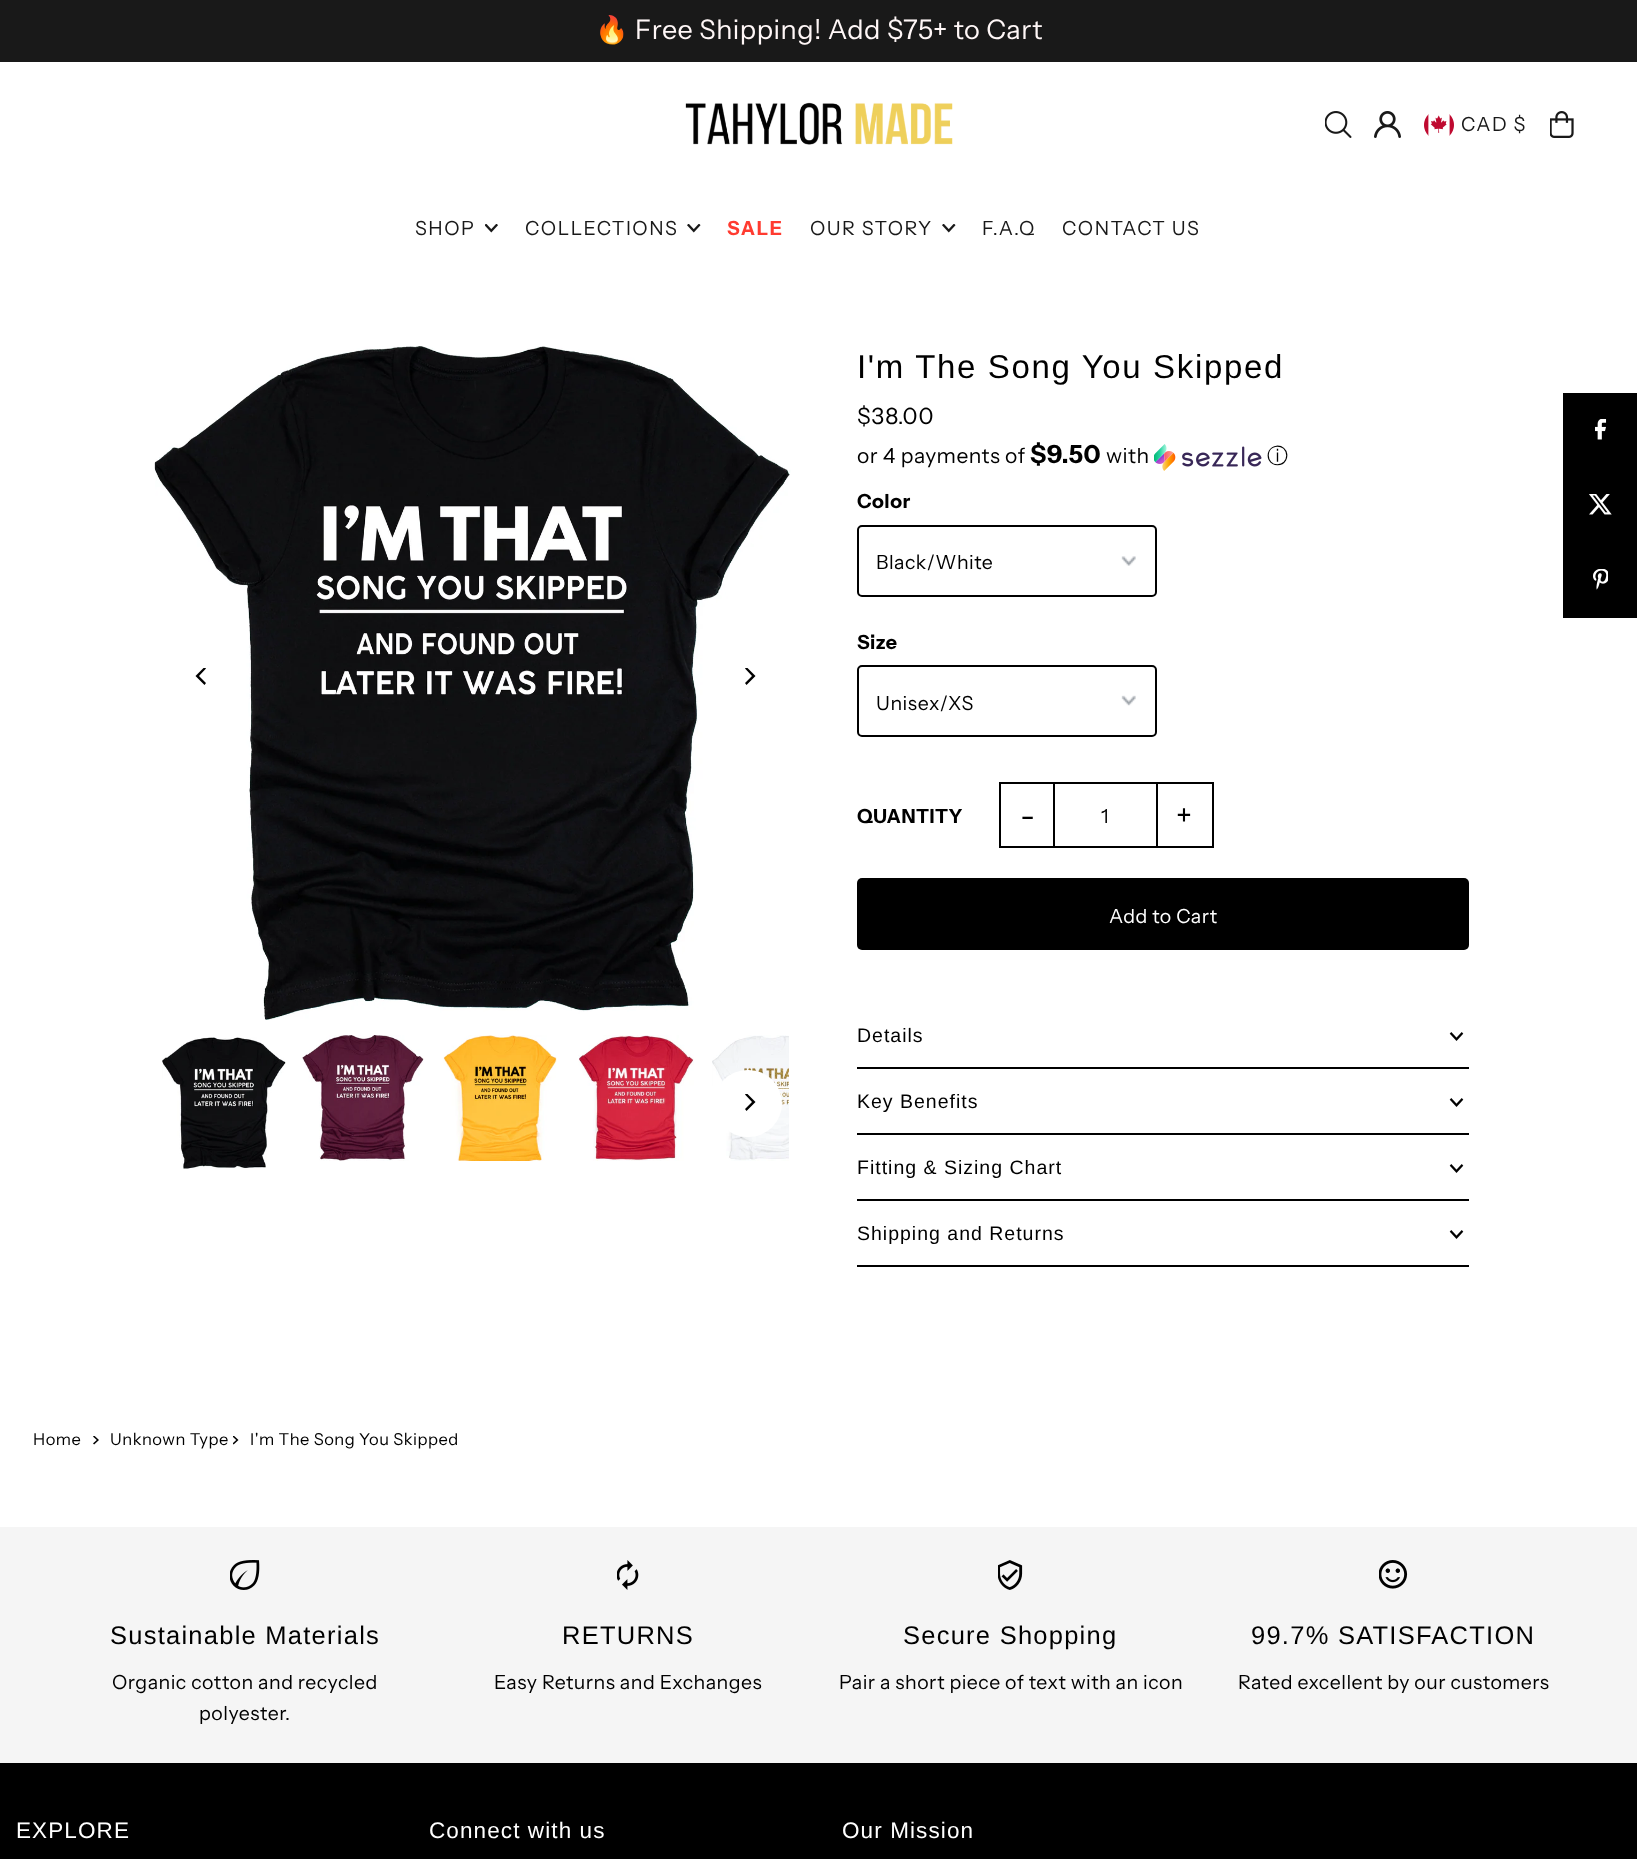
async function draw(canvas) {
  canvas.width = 1637
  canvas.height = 1859
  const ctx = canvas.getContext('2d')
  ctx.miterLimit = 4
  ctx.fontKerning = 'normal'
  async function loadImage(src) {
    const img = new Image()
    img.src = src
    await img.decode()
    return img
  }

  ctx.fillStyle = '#fff'
  ctx.fillRect(0, 0, 1637, 1859)
  ctx.fillStyle = '#191919'
  ctx.fillRect(0, 0, 1637, 62)
  ctx.letterSpacing = '0.5px'
  ctx.font = '27px Noto Color Emoji'
  ctx.fillStyle = '#fff7f7'
  ctx.fillText('🔥', 595, 39)
  ctx.font = '27px Instrument Sans'
  ctx.fillText('Free Shipping! Add $75+ to Cart', 635, 39)
  ctx.drawImage(await loadImage('image0.png'), 685, 102, 268, 43)
  ctx.drawImage(await loadImage('image1.png'), 1325, 111, 27, 27)
  ctx.drawImage(await loadImage('image2.png'), 1374, 111, 27, 27)
  ctx.drawImage(await loadImage('image3.png'), 1424, 114, 30, 22)
  ctx.letterSpacing = '1.5px'
  ctx.font = '19.5px Instrument Sans'
  ctx.fillStyle = '#191919'
  ctx.fillText('CAD $', 1461, 131)
  ctx.drawImage(await loadImage('image4.png'), 1550, 111, 24, 27)
  ctx.fillText('SHOP', 415, 235)
  ctx.drawImage(await loadImage('image5.png'), 485, 224, 13, 9)
  ctx.fillText('COLLECTIONS', 525, 235)
  ctx.drawImage(await loadImage('image6.png'), 687, 224, 14, 9)
  ctx.font = 'bold 19.5px Instrument Sans'
  ctx.fillStyle = '#ff3b30'
  ctx.fillText('SALE', 727, 235)
  ctx.font = '19.5px Instrument Sans'
  ctx.fillStyle = '#191919'
  ctx.fillText('OUR STORY', 810, 235)
  ctx.drawImage(await loadImage('image6.png'), 942, 224, 14, 9)
  ctx.fillText('F.A.Q', 982, 235)
  ctx.fillText('CONTACT US', 1062, 235)
  ctx.drawImage(await loadImage('image7.png'), 154, 346, 637, 674)
  ctx.save()
  ctx.beginPath()
  ctx.rect(194, 668, 18, 18)
  ctx.clip()
  ctx.fillStyle = '#000'
  ctx.beginPath()
  ctx.moveTo(195.5, 676)
  ctx.lineTo(204.5, 685)
  ctx.lineTo(206, 683)
  ctx.lineTo(199, 676)
  ctx.lineTo(206, 668.5)
  ctx.lineTo(204.5, 667)
  ctx.closePath()
  ctx.fill()
  ctx.restore()
  ctx.save()
  ctx.beginPath()
  ctx.rect(740, 668, 18, 18)
  ctx.clip()
  ctx.fillStyle = '#000'
  ctx.beginPath()
  ctx.moveTo(755.5, 676)
  ctx.lineTo(746.5, 667)
  ctx.lineTo(745, 668.5)
  ctx.lineTo(752, 676)
  ctx.lineTo(745, 683)
  ctx.lineTo(746.5, 685)
  ctx.closePath()
  ctx.fill()
  ctx.restore()
  ctx.drawImage(await loadImage('image8.png'), 162, 1037, 124, 132)
  ctx.drawImage(await loadImage('image9.png'), 302, 1035, 122, 126)
  ctx.drawImage(await loadImage('image10.png'), 443, 1035, 114, 126)
  ctx.drawImage(await loadImage('image11.png'), 578, 1035, 116, 126)
  ctx.drawImage(await loadImage('image12.png'), 712, 1035, 77, 126)
  ctx.fillStyle = '#fff'
  ctx.beginPath()
  ctx.roundRect(714, 1070, 68, 67, 33.5)
  ctx.fill()
  ctx.save()
  ctx.beginPath()
  ctx.rect(740, 1094, 18, 18)
  ctx.clip()
  ctx.fillStyle = '#000'
  ctx.beginPath()
  ctx.moveTo(755.5, 1102)
  ctx.lineTo(746.5, 1093)
  ctx.lineTo(745, 1094.5)
  ctx.lineTo(752, 1102)
  ctx.lineTo(745, 1109)
  ctx.lineTo(746.5, 1111)
  ctx.closePath()
  ctx.fill()
  ctx.restore()
  ctx.letterSpacing = '1.65px'
  ctx.font = '33px Liberation Sans'
  ctx.fillStyle = '#000'
  ctx.fillText('I\'m The Song You Skipped', 857, 378)
  ctx.letterSpacing = '0.5px'
  ctx.font = '22.5px Instrument Sans'
  ctx.fillText('$38.00', 857, 424)
  ctx.font = '21px Instrument Sans'
  ctx.fillText('or 4 payments of', 857, 463)
  ctx.font = 'bold 25px Instrument Sans'
  ctx.fillText('$9.50', 1030, 463)
  ctx.font = '21px Instrument Sans'
  ctx.fillText('with', 1106, 463)
  ctx.drawImage(await loadImage('image13.png'), 1154, 444, 108, 27)
  ctx.font = '500 21px WenQuanYi Zen Hei'
  ctx.fillText('ⓘ', 1267, 463)
  ctx.font = 'bold 19.5px Instrument Sans'
  ctx.fillText('Color', 857, 508)
  ctx.drawImage(await loadImage('image14.png'), 1121, 556, 15, 10)
  ctx.beginPath()
  ctx.roundRect(858, 526, 298, 70, 4)
  ctx.strokeStyle = '#000'
  ctx.lineWidth = 2
  ctx.stroke()
  ctx.font = '19.5px Instrument Sans'
  ctx.fillText('Black/White', 876, 569)
  ctx.font = 'bold 19.5px Instrument Sans'
  ctx.fillText('Size', 857, 649)
  ctx.drawImage(await loadImage('image15.png'), 1121, 695, 15, 11)
  ctx.beginPath()
  ctx.roundRect(858, 666, 298, 70, 4)
  ctx.stroke()
  ctx.font = '19.5px Instrument Sans'
  ctx.fillText('Unisex/XS', 876, 710)
  ctx.font = 'bold 19.5px Instrument Sans'
  ctx.fillText('QUANTITY', 857, 823)
  ctx.fillRect(999, 782, 57, 2)
  ctx.fillRect(999, 846, 57, 2)
  ctx.fillRect(999, 782, 2, 66)
  ctx.letterSpacing = '1px'
  ctx.font = '30px Instrument Sans'
  ctx.fillText('-', 1020, 826)
  ctx.strokeRect(1054, 783, 103, 64)
  ctx.letterSpacing = '0.5px'
  ctx.font = '19.5px Instrument Sans'
  ctx.fillText('1', 1101, 823)
  ctx.fillRect(1157, 782, 57, 2)
  ctx.fillRect(1212, 782, 2, 66)
  ctx.fillRect(1157, 846, 57, 2)
  ctx.letterSpacing = '1px'
  ctx.font = '30px Instrument Sans'
  ctx.fillText('+', 1176, 826)
  ctx.beginPath()
  ctx.roundRect(857, 878, 612, 72, 5)
  ctx.fill()
  ctx.letterSpacing = '0.5px'
  ctx.font = '19.5px Instrument Sans'
  ctx.fillStyle = '#fff'
  ctx.fillText('Add to Cart', 1109, 923)
  ctx.fillStyle = '#000'
  ctx.fillRect(857, 1067, 612, 2)
  ctx.letterSpacing = '1px'
  ctx.font = '19.5px Liberation Sans'
  ctx.fillText('Details', 857, 1042)
  ctx.drawImage(await loadImage('image16.png'), 1449, 1032, 15, 9)
  ctx.fillRect(857, 1133, 612, 2)
  ctx.fillText('Key Benefits', 857, 1108)
  ctx.drawImage(await loadImage('image16.png'), 1449, 1098, 15, 9)
  ctx.fillRect(857, 1199, 612, 2)
  ctx.fillText('Fitting & Sizing Chart', 857, 1174)
  ctx.drawImage(await loadImage('image16.png'), 1449, 1164, 15, 9)
  ctx.fillRect(857, 1265, 612, 2)
  ctx.fillText('Shipping and Returns', 857, 1240)
  ctx.drawImage(await loadImage('image16.png'), 1449, 1230, 15, 9)
  ctx.fillRect(1563, 393, 74, 225)
  ctx.drawImage(await loadImage('image17.png'), 1595, 419, 12, 21)
  ctx.drawImage(await loadImage('image18.png'), 1589, 494, 23, 21)
  ctx.drawImage(await loadImage('image19.png'), 1593, 569, 15, 21)
  ctx.letterSpacing = '0.5px'
  ctx.font = '16.5px Instrument Sans'
  ctx.fillText('Home', 33, 1445)
  ctx.drawImage(await loadImage('image20.png'), 93, 1436, 6, 9)
  ctx.fillText('Unknown Type', 110, 1445)
  ctx.drawImage(await loadImage('image21.png'), 233, 1436, 6, 9)
  ctx.fillText('I\'m The Song You Skipped', 250, 1445)
  ctx.fillStyle = '#f5f5f5'
  ctx.fillRect(0, 1527, 1637, 236)
  ctx.drawImage(await loadImage('image22.png'), 230, 1560, 30, 30)
  ctx.letterSpacing = '1.25px'
  ctx.font = '25.5px Liberation Sans'
  ctx.fillStyle = '#000'
  ctx.fillText('Sustainable Materials', 110, 1644)
  ctx.letterSpacing = '0.5px'
  ctx.font = '19.5px Instrument Sans'
  ctx.fillText('Organic cotton and recycled', 112, 1689)
  ctx.fillText('polyester.', 199, 1720)
  ctx.drawImage(await loadImage('image23.png'), 617, 1560, 22, 30)
  ctx.letterSpacing = '1.25px'
  ctx.font = '25.5px Liberation Sans'
  ctx.fillText('RETURNS', 562, 1644)
  ctx.letterSpacing = '0.5px'
  ctx.font = '19.5px Instrument Sans'
  ctx.fillText('Easy Returns and Exchanges', 494, 1689)
  ctx.drawImage(await loadImage('image24.png'), 998, 1560, 25, 30)
  ctx.letterSpacing = '1.25px'
  ctx.font = '25.5px Liberation Sans'
  ctx.fillText('Secure Shopping', 903, 1644)
  ctx.letterSpacing = '0.5px'
  ctx.font = '19.5px Instrument Sans'
  ctx.fillText('Pair a short piece of text with an icon', 839, 1689)
  ctx.drawImage(await loadImage('image25.png'), 1379, 1560, 29, 29)
  ctx.letterSpacing = '1.25px'
  ctx.font = '25.5px Liberation Sans'
  ctx.fillText('99.7% SATISFACTION', 1251, 1644)
  ctx.letterSpacing = '0.5px'
  ctx.font = '19.5px Instrument Sans'
  ctx.fillText('Rated excellent by our customers', 1238, 1689)
  ctx.fillRect(0, 1763, 1637, 96)
  ctx.letterSpacing = '1.1px'
  ctx.font = '22.5px Liberation Sans'
  ctx.fillStyle = '#fff'
  ctx.fillText('EXPLORE', 16, 1838)
  ctx.fillText('Connect with us', 429, 1838)
  ctx.fillText('Our Mission', 842, 1838)
}

draw(document.querySelector('canvas'))
